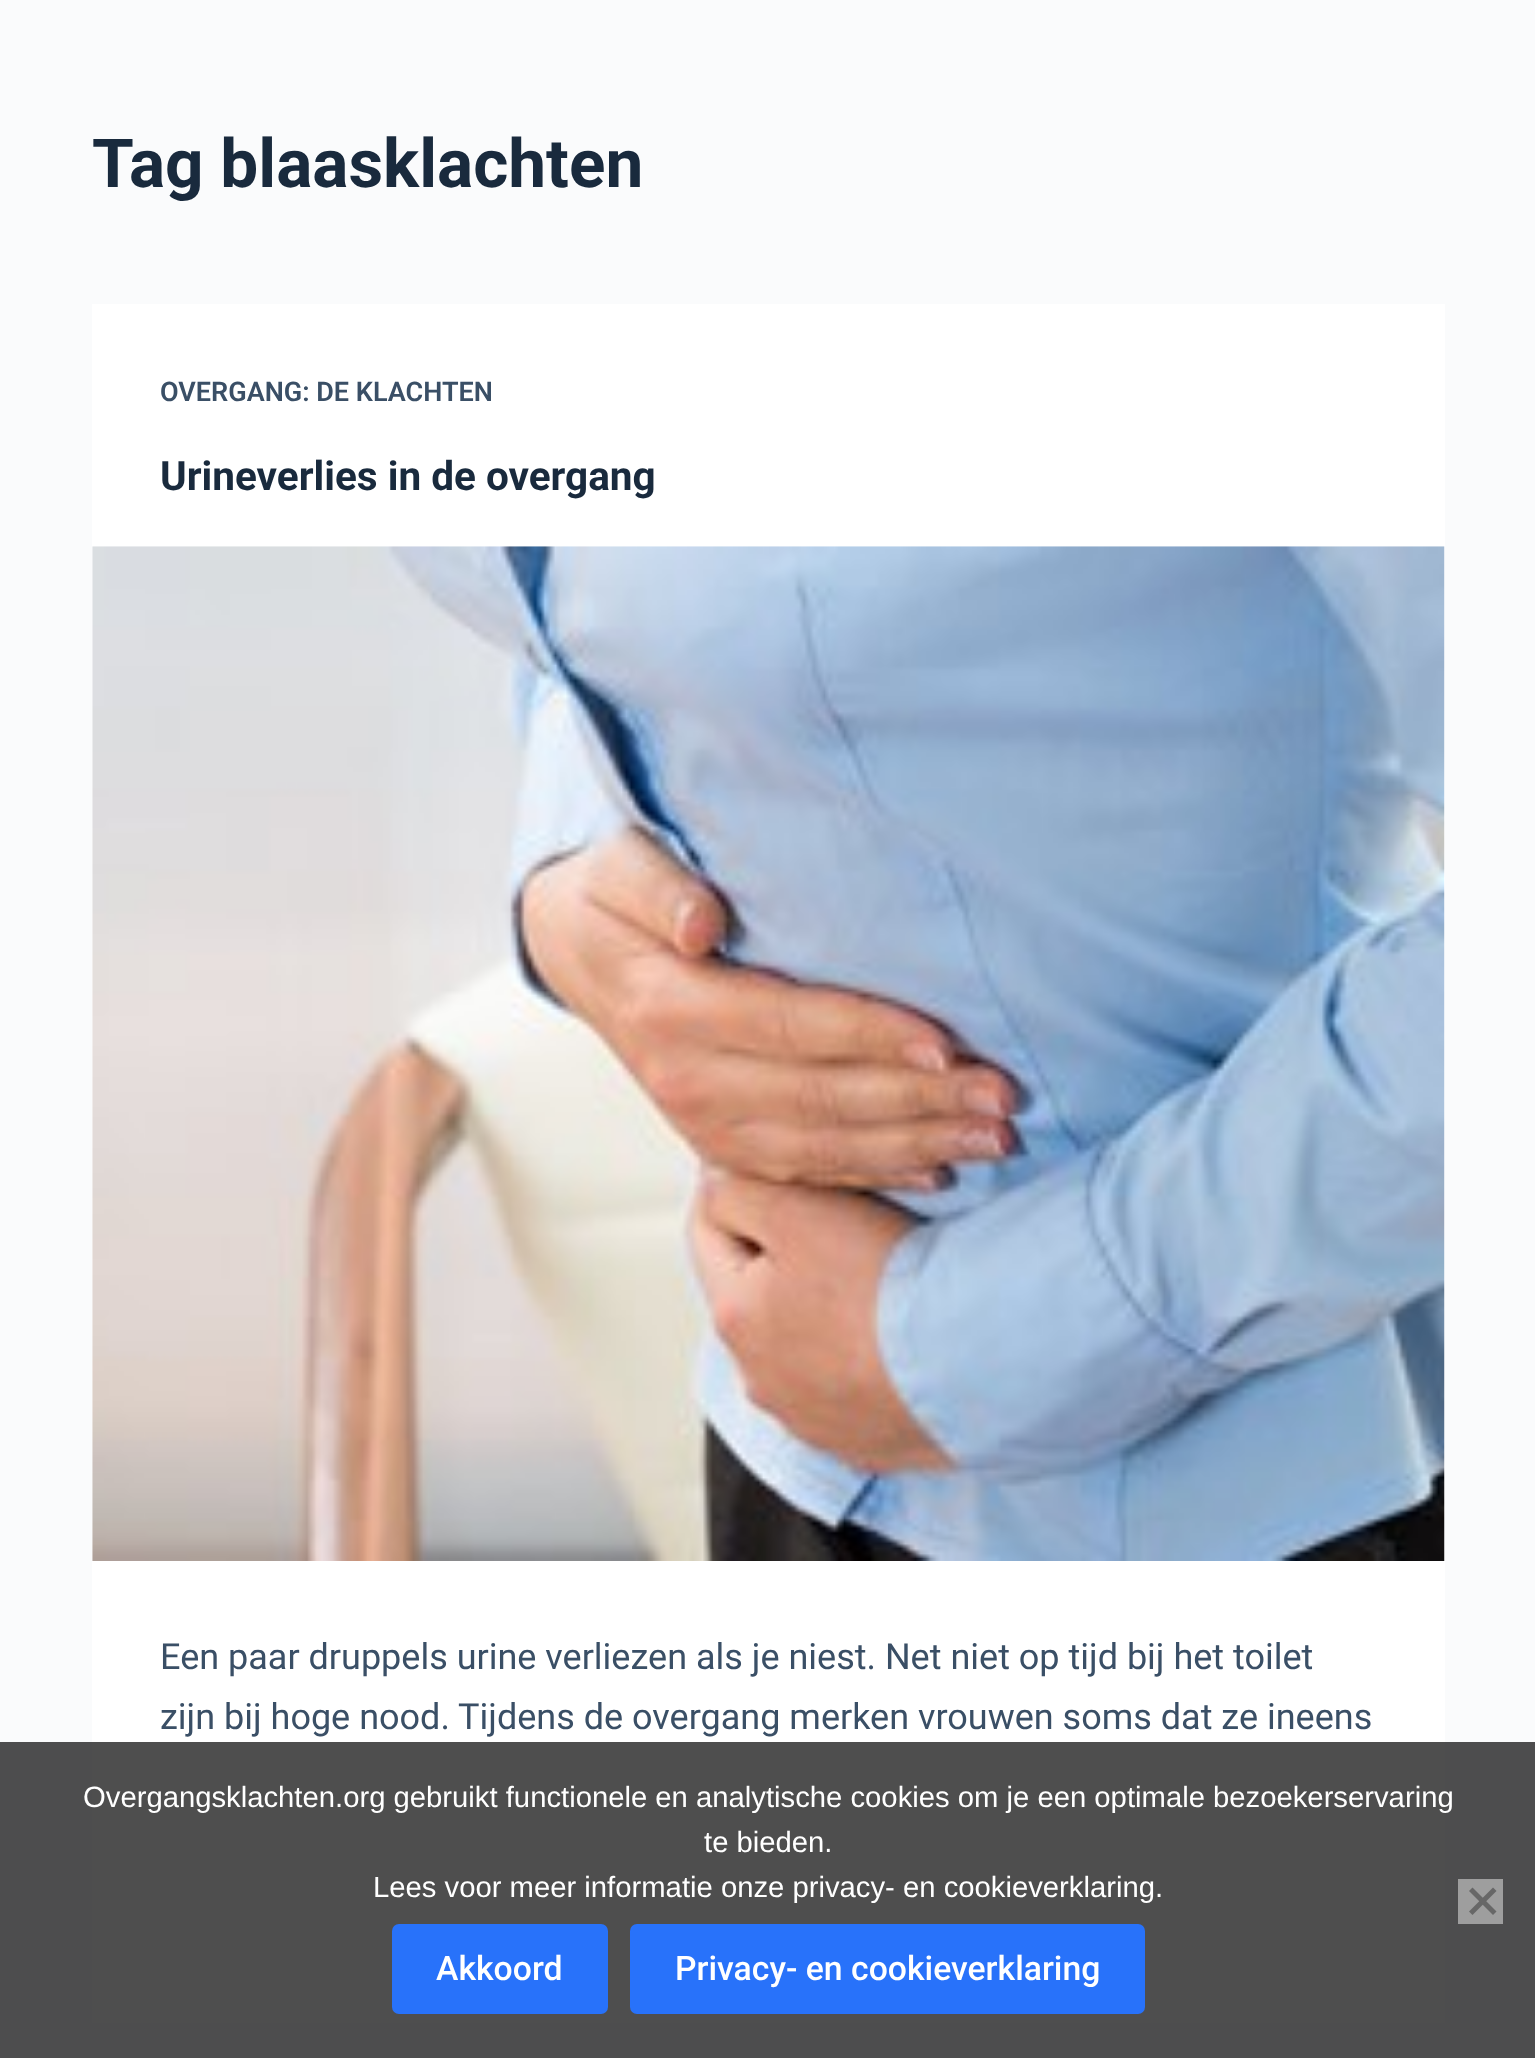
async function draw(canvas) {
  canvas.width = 1535
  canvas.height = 2058
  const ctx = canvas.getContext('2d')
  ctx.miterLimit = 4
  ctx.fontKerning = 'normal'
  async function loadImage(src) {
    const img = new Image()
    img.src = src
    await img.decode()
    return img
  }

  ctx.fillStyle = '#fafbfc'
  ctx.fillRect(0, 0, 1535, 2058)
  ctx.font = 'bold 67.5px Roboto'
  ctx.fillStyle = '#192a3d'
  ctx.fillText('Tag blaasklachten', 92, 187)
  ctx.fillStyle = '#fff'
  ctx.fillRect(92, 304, 1353, 1719)
  ctx.font = '600 27px Roboto'
  ctx.fillStyle = '#3a4f66'
  ctx.fillText('OVERGANG: DE KLACHTEN', 160, 401)
  ctx.font = 'bold 40.5px Roboto'
  ctx.fillStyle = '#192a3d'
  ctx.fillText('Urineverlies in de overgang', 160, 490)
  ctx.drawImage(await loadImage('image0.png'), 92, 546, 1353, 1015)
  ctx.font = '36px Roboto'
  ctx.fillStyle = '#3a4f66'
  ctx.fillText('Een paar druppels urine verliezen als je niest. Net niet op tijd bij het toilet', 160, 1669)
  ctx.fillText('zijn bij hoge nood. Tijdens de overgang merken vrouwen soms dat ze ineens', 160, 1729)
  ctx.fillStyle = '#222222cc'
  ctx.fillRect(0, 1742, 1535, 316)
  ctx.font = '29.25px Liberation Sans'
  ctx.fillStyle = '#fff'
  ctx.fillText('Overgangsklachten.org gebruikt functionele en analytische cookies om je een optimale bezoekerservaring', 83, 1807)
  ctx.fillText('te bieden.', 704, 1852)
  ctx.fillText('Lees voor meer informatie onze privacy- en cookieverklaring.', 373, 1897)
  ctx.fillStyle = '#9e9e9e'
  ctx.fillRect(1458, 1879, 45, 45)
  ctx.fillStyle = '#676767'
  ctx.beginPath()
  ctx.moveTo(1493, 1887.5)
  ctx.lineTo(1496.5, 1891)
  ctx.lineTo(1472.5, 1915)
  ctx.lineTo(1469, 1911.5)
  ctx.closePath()
  ctx.fill()
  ctx.beginPath()
  ctx.moveTo(1469, 1891)
  ctx.lineTo(1472.5, 1887.5)
  ctx.lineTo(1496.5, 1911.5)
  ctx.lineTo(1493, 1915)
  ctx.closePath()
  ctx.fill()
  ctx.fillStyle = '#2872fa'
  ctx.beginPath()
  ctx.roundRect(392, 1924, 216, 90, 7)
  ctx.fill()
  ctx.font = '500 33.75px Roboto'
  ctx.fillStyle = '#fff'
  ctx.fillText('Akkoord', 436, 1980)
  ctx.fillStyle = '#2872fa'
  ctx.beginPath()
  ctx.roundRect(630, 1924, 515, 90, 7)
  ctx.fill()
  ctx.fillStyle = '#fff'
  ctx.fillText('Privacy- en cookieverklaring', 675, 1980)
}

draw(document.querySelector('canvas'))
